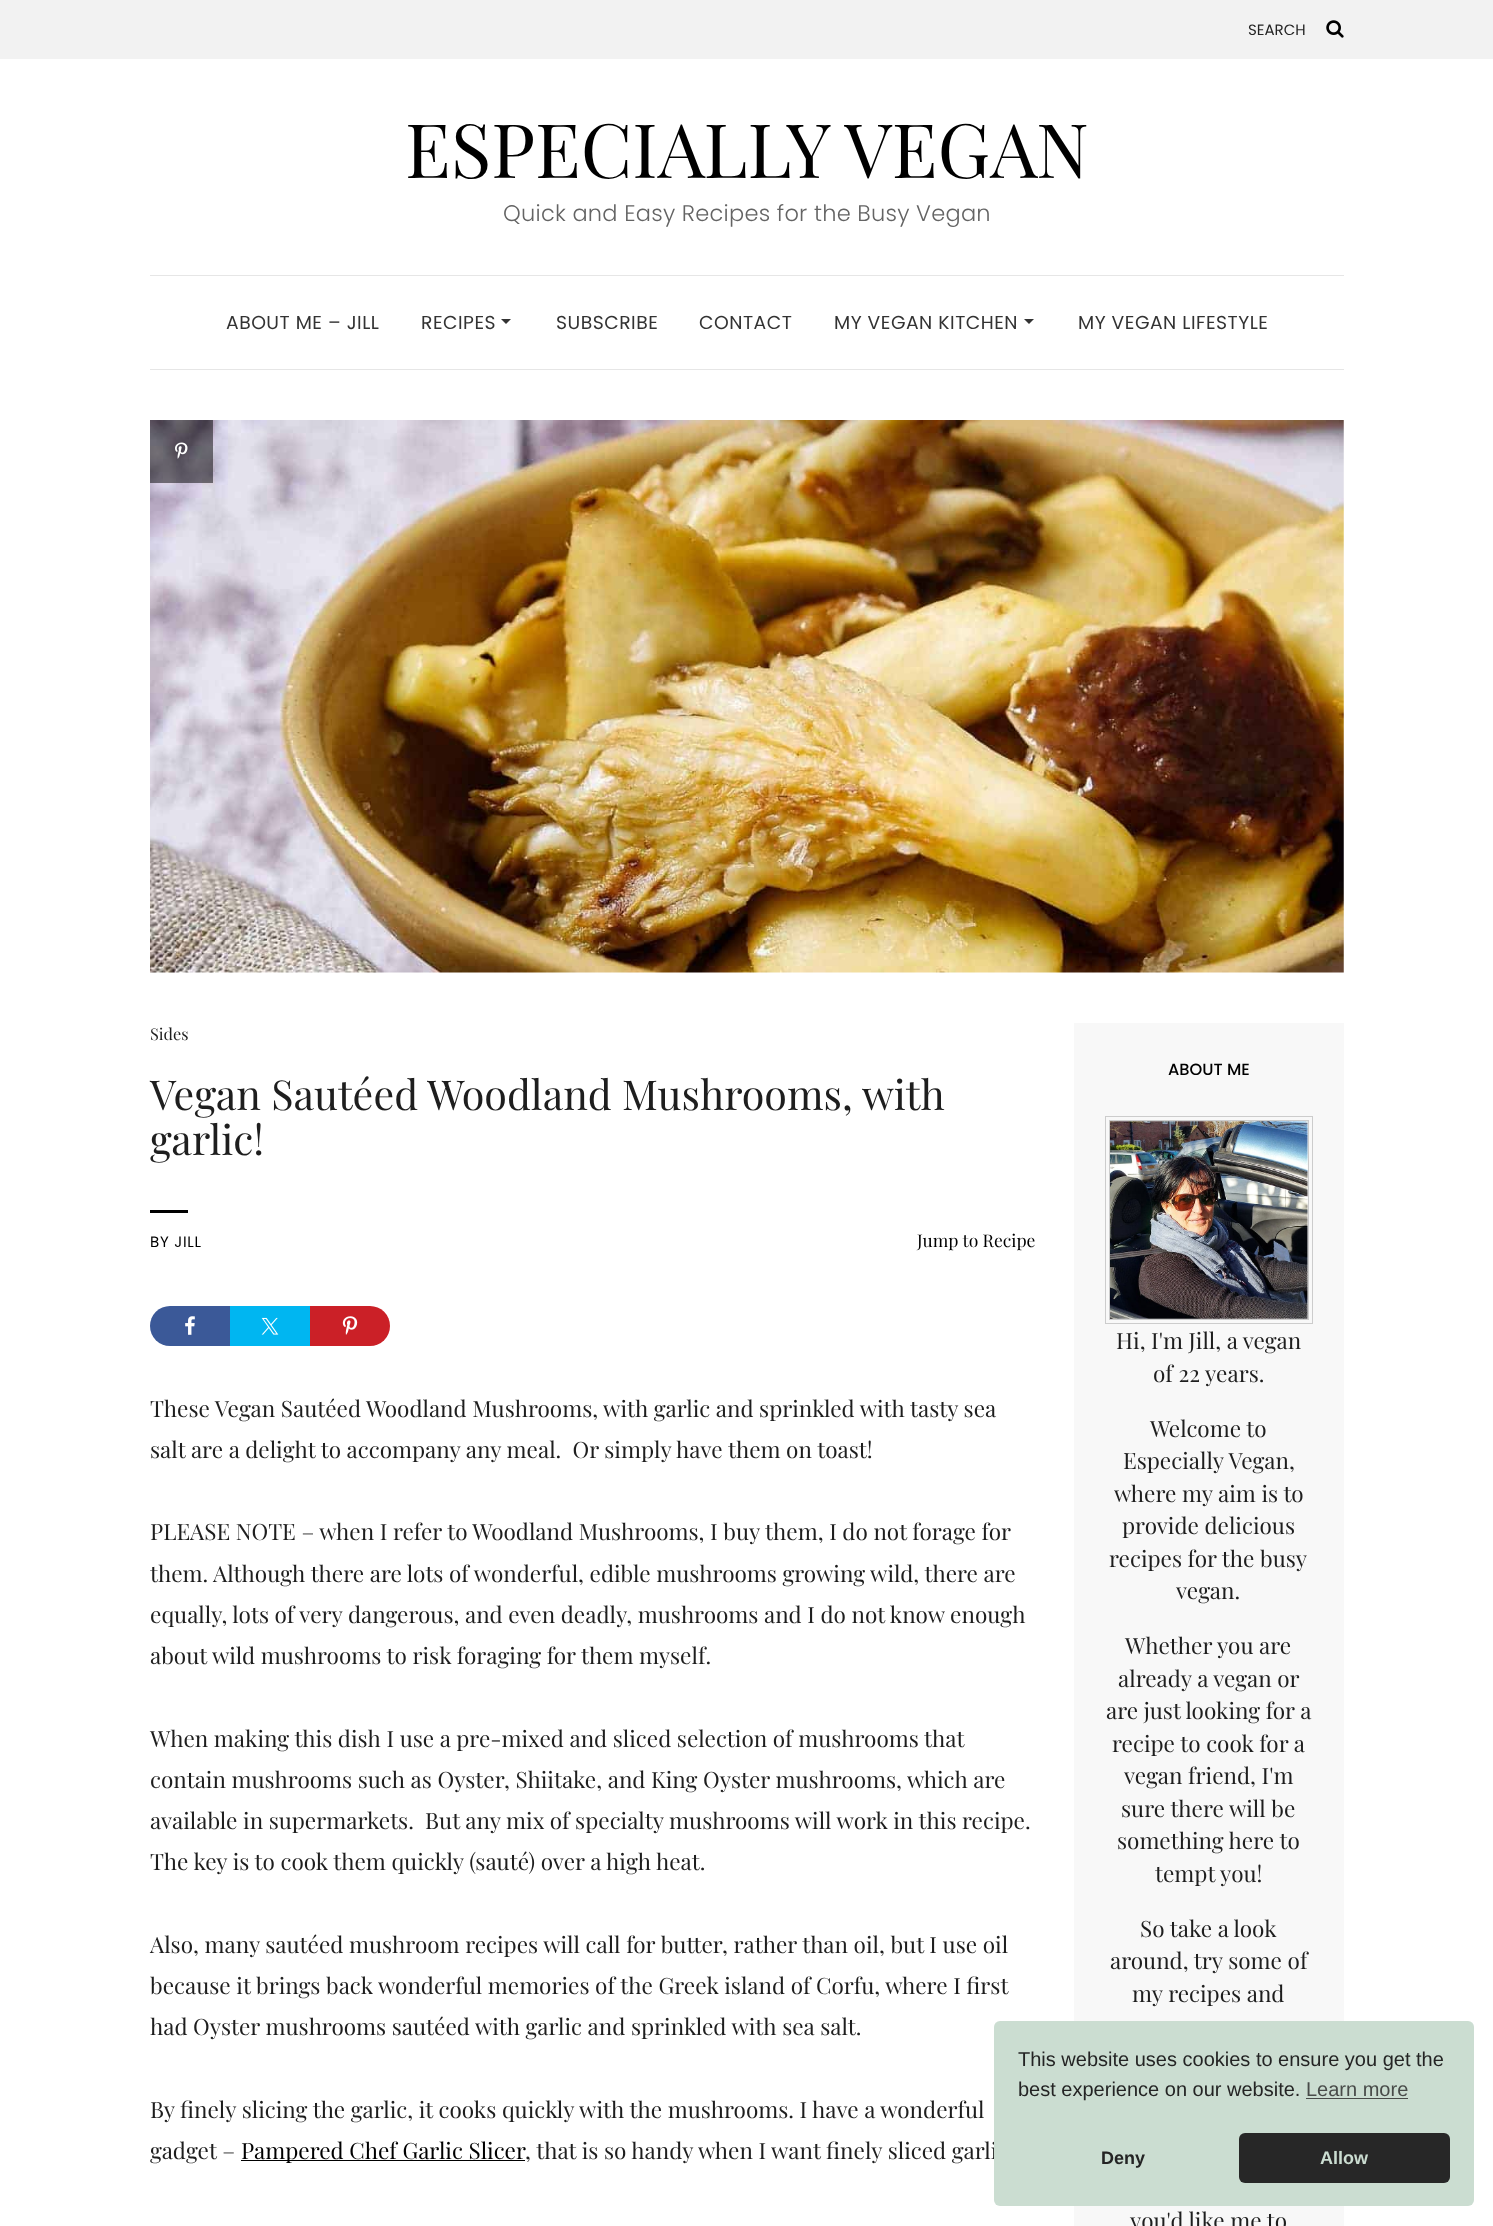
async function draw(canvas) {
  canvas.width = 1493
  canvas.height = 2226
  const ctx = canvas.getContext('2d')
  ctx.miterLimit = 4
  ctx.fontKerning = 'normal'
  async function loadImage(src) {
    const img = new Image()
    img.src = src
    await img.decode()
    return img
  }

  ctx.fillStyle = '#fff'
  ctx.fillRect(0, 0, 1493, 2226)
  ctx.fillStyle = '#f2f2f2'
  ctx.fillRect(0, 0, 1493, 59)
  ctx.font = '15px Poppins'
  ctx.fillStyle = '#242424'
  ctx.fillText('SEARCH', 1248, 35)
  ctx.drawImage(await loadImage('image0.png'), 1326, 20, 18, 18)
  ctx.font = '75px Playfair Display'
  ctx.fillStyle = '#000'
  ctx.fillText('ESPECIALLY VEGAN', 405, 178)
  ctx.letterSpacing = '0.25px'
  ctx.font = '300 22.5px Poppins'
  ctx.fillStyle = '#646464'
  ctx.fillText('Quick and Easy Recipes for the Busy Vegan', 503, 221)
  ctx.fillStyle = '#e6e6e6'
  ctx.fillRect(150, 275, 1194, 1)
  ctx.fillRect(150, 369, 1194, 1)
  ctx.letterSpacing = '0.5px'
  ctx.font = '18.75px Poppins'
  ctx.fillStyle = '#333'
  ctx.fillText('ABOUT ME – JILL', 226, 329)
  ctx.fillText('RECIPES', 421, 329)
  ctx.beginPath()
  ctx.moveTo(501, 319)
  ctx.lineTo(511, 319)
  ctx.lineTo(506, 324)
  ctx.closePath()
  ctx.fill()
  ctx.fillText('SUBSCRIBE', 556, 329)
  ctx.fillText('CONTACT', 699, 329)
  ctx.fillText('MY VEGAN KITCHEN', 834, 329)
  ctx.beginPath()
  ctx.moveTo(1024, 319)
  ctx.lineTo(1034, 319)
  ctx.lineTo(1029, 324)
  ctx.closePath()
  ctx.fill()
  ctx.fillText('MY VEGAN LIFESTYLE', 1078, 329)
  ctx.drawImage(await loadImage('image1.png'), 150, 420, 1194, 553)
  ctx.fillStyle = '#00000080'
  ctx.fillRect(150, 420, 63, 63)
  ctx.drawImage(await loadImage('image2.png'), 175, 442, 13, 17)
  ctx.letterSpacing = '0px'
  ctx.font = '16.25px Playfair Display'
  ctx.fillStyle = '#1e1e1e'
  ctx.fillText('Sides', 150, 1040)
  ctx.font = '41.25px Playfair Display'
  ctx.fillText('Vegan Sautéed Woodland Mushrooms, with', 150, 1110)
  ctx.fillText('garlic!', 150, 1155)
  ctx.fillStyle = '#000'
  ctx.fillRect(150, 1210, 38, 3)
  ctx.letterSpacing = '0.75px'
  ctx.font = '15px Poppins'
  ctx.fillText('BY JILL', 150, 1247)
  ctx.letterSpacing = '0px'
  ctx.font = '17.5px Playfair Display'
  ctx.fillText('Jump to Recipe', 917, 1247)
  ctx.fillStyle = '#3b5998'
  ctx.beginPath()
  ctx.roundRect(150, 1306, 80, 40, [20, 0, 0, 20])
  ctx.fill()
  ctx.drawImage(await loadImage('image3.png'), 185, 1316, 10, 19)
  ctx.fillStyle = '#00b6f1'
  ctx.fillRect(230, 1306, 80, 40)
  ctx.drawImage(await loadImage('image4.png'), 261, 1317, 18, 18)
  ctx.fillStyle = '#cb2027'
  ctx.beginPath()
  ctx.roundRect(310, 1306, 80, 40, [0, 20, 20, 0])
  ctx.fill()
  ctx.drawImage(await loadImage('image5.png'), 342, 1316, 16, 19)
  ctx.font = '22.5px Playfair Display'
  ctx.fillStyle = '#1e1e1e'
  ctx.fillText('These Vegan Sautéed Woodland Mushrooms, with garlic and sprinkled with tasty sea', 150, 1417)
  ctx.fillText('salt are a delight to accompany any meal.  Or simply have them on toast!', 150, 1458)
  ctx.fillText('PLEASE NOTE – when I refer to Woodland Mushrooms, I buy them, I do not forage for', 150, 1540)
  ctx.fillText('them.', 150, 1582)
  ctx.fillText('Although there are lots of wonderful, edible mushrooms growing wild, there are', 213, 1582)
  ctx.fillText('equally, lots of very dangerous, and even deadly, mushrooms and I do not know enough', 150, 1623)
  ctx.fillText('about wild mushrooms to risk foraging for them myself.', 150, 1664)
  ctx.fillText('When making this dish I use a pre-mixed and sliced selection of mushrooms that', 150, 1747)
  ctx.fillText('contain mushrooms such as Oyster, Shiitake, and King Oyster mushrooms, which are', 150, 1788)
  ctx.fillText('available in supermarkets.  But any mix of specialty mushrooms will work in this recipe.', 150, 1829)
  ctx.fillText('The key is to cook them quickly (sauté) over a high heat.', 150, 1870)
  ctx.fillText('Also, many sautéed mushroom recipes will call for butter, rather than oil, but I use oil', 150, 1953)
  ctx.fillText('because it brings back wonderful memories of the Greek island of Corfu, where I first', 150, 1994)
  ctx.fillText('had Oyster mushrooms sautéed with garlic and sprinkled with sea salt.', 150, 2035)
  ctx.fillText('By finely slicing the garlic, it cooks quickly with the mushrooms. I have a wonderful', 150, 2118)
  ctx.fillText('gadget –', 150, 2159)
  ctx.fillStyle = '#000'
  ctx.fillRect(241, 2160, 284, 1)
  ctx.fillText('Pampered Chef Garlic Slicer', 241, 2159)
  ctx.fillStyle = '#1e1e1e'
  ctx.fillText(', that is so handy when I want finely sliced garli', 525, 2159)
  ctx.fillStyle = '#f8f8f8'
  ctx.fillRect(1074, 1023, 270, 1203)
  ctx.font = '500 16.25px Poppins'
  ctx.fillStyle = '#000'
  ctx.fillText('ABOUT ME', 1168, 1075)
  ctx.strokeStyle = '#ccc'
  ctx.strokeRect(1105.5, 1116.5, 207, 207)
  ctx.strokeRect(1109.5, 1120.5, 199, 199)
  ctx.drawImage(await loadImage('image6.png'), 1110, 1121, 198, 198)
  ctx.font = '22.5px Playfair Display'
  ctx.fillStyle = '#1e1e1e'
  ctx.fillText('Hi, I\'m Jill, a vegan', 1116, 1349)
  ctx.fillText('of 22 years.', 1153, 1382)
  ctx.fillText('Welcome to', 1150, 1437)
  ctx.fillText('Especially Vegan,', 1123, 1469)
  ctx.fillText('where my aim is to', 1114, 1502)
  ctx.fillText('provide delicious', 1122, 1534)
  ctx.fillText('recipes for the busy', 1109, 1567)
  ctx.fillText('vegan.', 1176, 1599)
  ctx.fillText('Whether you are', 1125, 1654)
  ctx.fillText('already a vegan or', 1118, 1687)
  ctx.fillText('are just looking for a', 1106, 1719)
  ctx.fillText('recipe to cook for a', 1112, 1752)
  ctx.fillText('vegan friend, I\'m', 1124, 1784)
  ctx.fillText('sure there will be', 1121, 1817)
  ctx.fillText('something here to', 1117, 1849)
  ctx.fillText('tempt you!', 1155, 1882)
  ctx.fillText('So take a look', 1140, 1937)
  ctx.fillText('around, try some of', 1110, 1969)
  ctx.fillText('my recipes and', 1132, 2002)
  ctx.fillText('you\'d like me to', 1130, 2229)
  ctx.fillStyle = '#cbddd1'
  ctx.beginPath()
  ctx.roundRect(994, 2021, 480, 185, 6)
  ctx.fill()
  ctx.font = '20px Liberation Sans'
  ctx.fillStyle = '#242424'
  ctx.fillText('This website uses cookies to ensure you get the', 1018, 2066)
  ctx.fillText('best experience on our website.', 1018, 2096)
  ctx.fillStyle = '#484b49'
  ctx.fillText('Learn more', 1306, 2096)
  ctx.fillRect(1306, 2098, 102, 1)
  ctx.font = 'bold 18px Liberation Sans'
  ctx.fillStyle = '#242424'
  ctx.fillText('Deny', 1101, 2164)
  ctx.fillStyle = '#272727'
  ctx.beginPath()
  ctx.roundRect(1239, 2133, 211, 50, 6)
  ctx.fill()
  ctx.fillStyle = '#cbddd1'
  ctx.fillText('Allow', 1320, 2164)
}

draw(document.querySelector('canvas'))
